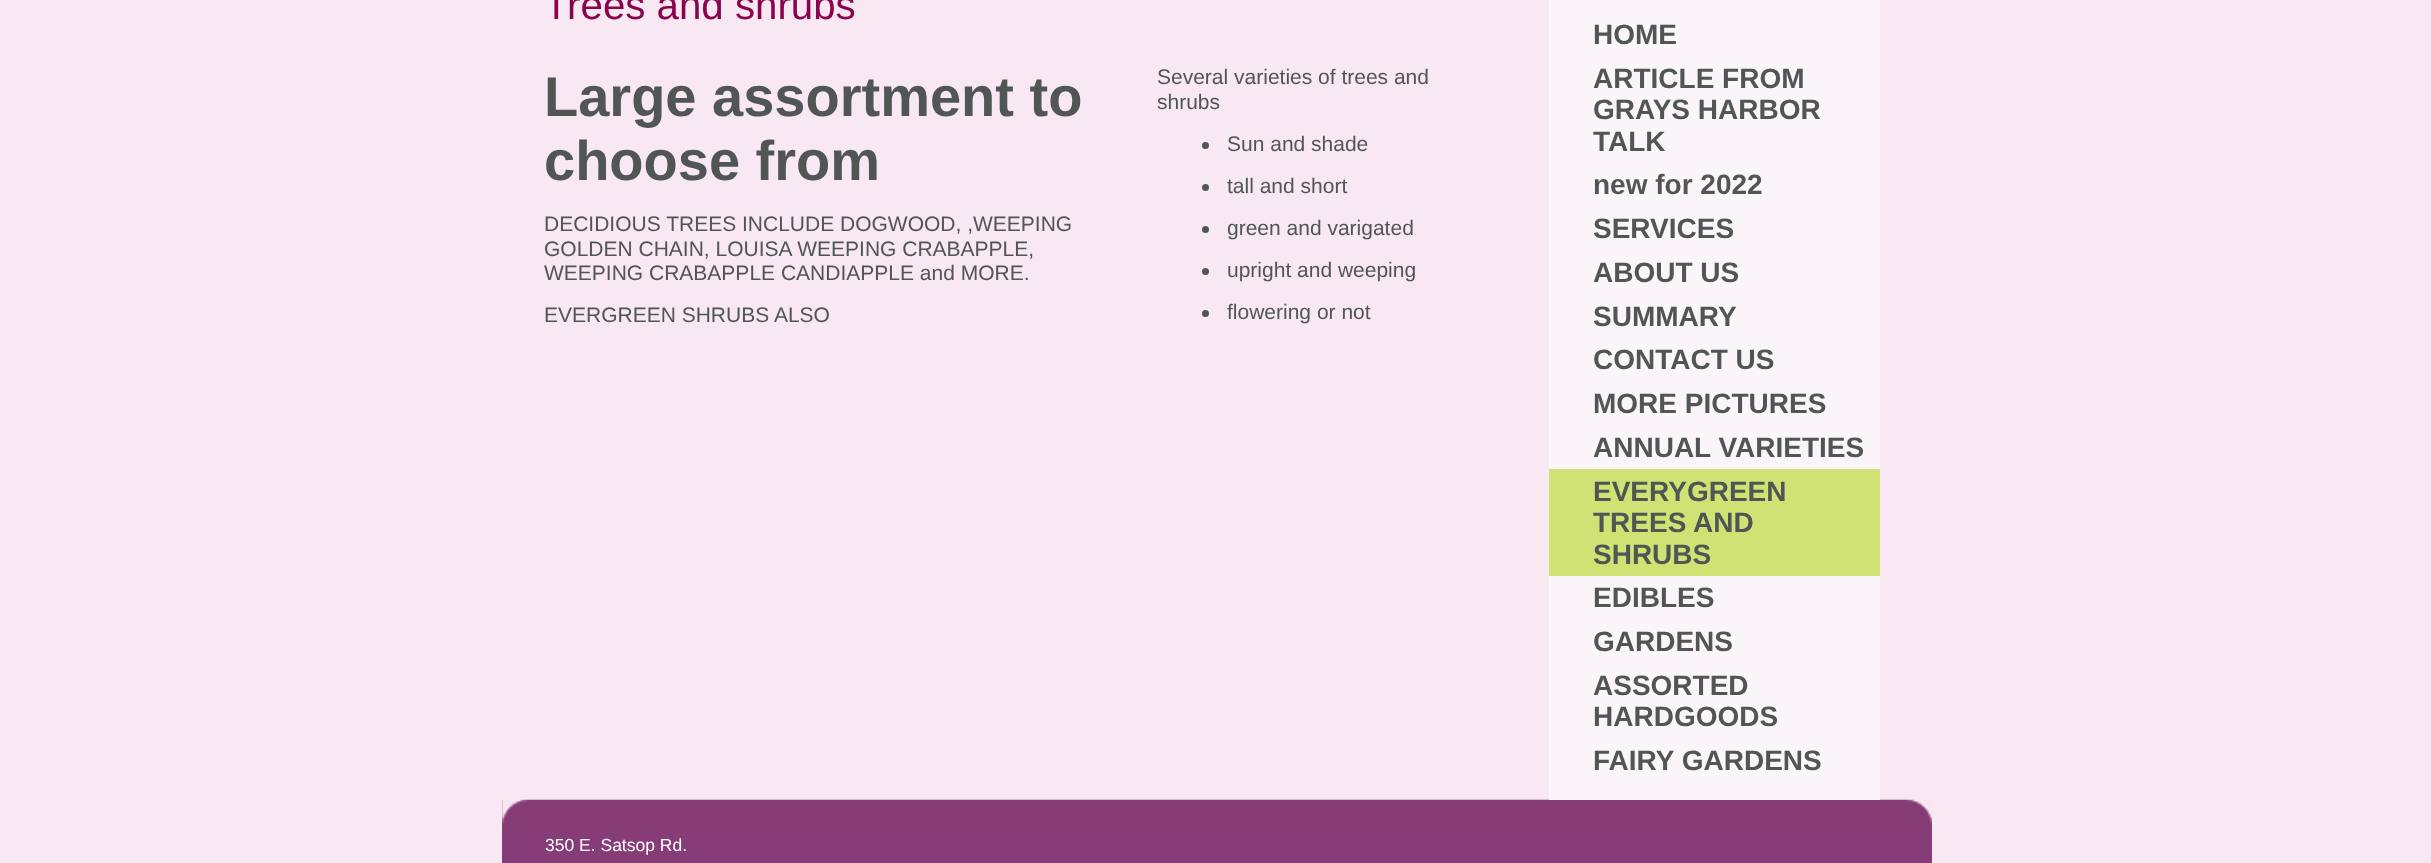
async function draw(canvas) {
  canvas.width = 2431
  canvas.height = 863
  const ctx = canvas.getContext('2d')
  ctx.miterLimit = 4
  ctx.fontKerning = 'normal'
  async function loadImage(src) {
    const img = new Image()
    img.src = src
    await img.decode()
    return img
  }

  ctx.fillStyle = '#f8e8f2'
  ctx.fillRect(0, 0, 2431, 863)
  ctx.font = '40.25px Liberation Sans'
  ctx.fillStyle = '#8a034c'
  ctx.fillText('Trees and shrubs', 544, 19)
  ctx.font = 'bold 56px Liberation Sans'
  ctx.fillStyle = '#515655'
  ctx.fillText('Large assortment to', 544, 116)
  ctx.fillText('choose from', 544, 180)
  ctx.font = '21px Liberation Sans'
  ctx.fillText('DECIDIOUS TREES INCLUDE DOGWOOD, ,WEEPING', 544, 231)
  ctx.fillText('GOLDEN CHAIN, LOUISA WEEPING CRABAPPLE,', 544, 256)
  ctx.fillText('WEEPING CRABAPPLE CANDIAPPLE and MORE.', 544, 280)
  ctx.fillText('EVERGREEN SHRUBS ALSO', 544, 322)
  ctx.fillText('Several varieties of trees and', 1157, 84)
  ctx.fillText('shrubs', 1157, 109)
  ctx.beginPath()
  ctx.arc(1205.5, 145.5, 3.5, 0, 2 * Math.PI)
  ctx.fill()
  ctx.fillText('Sun and shade', 1227, 151)
  ctx.beginPath()
  ctx.arc(1205.5, 187.5, 3.5, 0, 2 * Math.PI)
  ctx.fill()
  ctx.fillText('tall and short', 1227, 193)
  ctx.beginPath()
  ctx.arc(1205.5, 229.5, 3.5, 0, 2 * Math.PI)
  ctx.fill()
  ctx.fillText('green and varigated', 1227, 235)
  ctx.beginPath()
  ctx.arc(1205.5, 271.5, 3.5, 0, 2 * Math.PI)
  ctx.fill()
  ctx.fillText('upright and weeping', 1227, 277)
  ctx.beginPath()
  ctx.arc(1205.5, 313.5, 3.5, 0, 2 * Math.PI)
  ctx.fill()
  ctx.fillText('flowering or not', 1227, 319)
  ctx.fillStyle = '#863c77'
  ctx.fillRect(502, 800, 1430, 63)
  ctx.drawImage(await loadImage('image0.png'), 502, 799, 1430, 26)
  ctx.fillStyle = '#faf5f9'
  ctx.fillRect(1549, 0, 331, 800)
  ctx.font = 'bold 28px Liberation Sans'
  ctx.fillStyle = '#515655'
  ctx.fillText('HOME', 1593, 44)
  ctx.fillText('ARTICLE FROM', 1593, 88)
  ctx.fillText('GRAYS HARBOR', 1593, 119)
  ctx.fillText('TALK', 1593, 151)
  ctx.fillText('new for 2022', 1593, 194)
  ctx.fillText('SERVICES', 1593, 238)
  ctx.fillText('ABOUT US', 1593, 282)
  ctx.fillText('SUMMARY', 1593, 326)
  ctx.fillText('CONTACT US', 1593, 369)
  ctx.fillText('MORE PICTURES', 1593, 413)
  ctx.fillText('ANNUAL VARIETIES', 1593, 457)
  ctx.fillStyle = '#d0e274'
  ctx.fillRect(1549, 469, 331, 107)
  ctx.fillStyle = '#515655'
  ctx.fillText('EVERYGREEN', 1593, 501)
  ctx.fillText('TREES AND', 1593, 532)
  ctx.fillText('SHRUBS', 1593, 564)
  ctx.fillText('EDIBLES', 1593, 607)
  ctx.fillText('GARDENS', 1593, 651)
  ctx.fillText('ASSORTED', 1593, 695)
  ctx.fillText('HARDGOODS', 1593, 726)
  ctx.fillText('FAIRY GARDENS', 1593, 770)
  ctx.font = '17.5px Liberation Sans'
  ctx.fillStyle = '#fff'
  ctx.fillText('350 E. Satsop Rd.', 545, 851)
}

draw(document.querySelector('canvas'))
